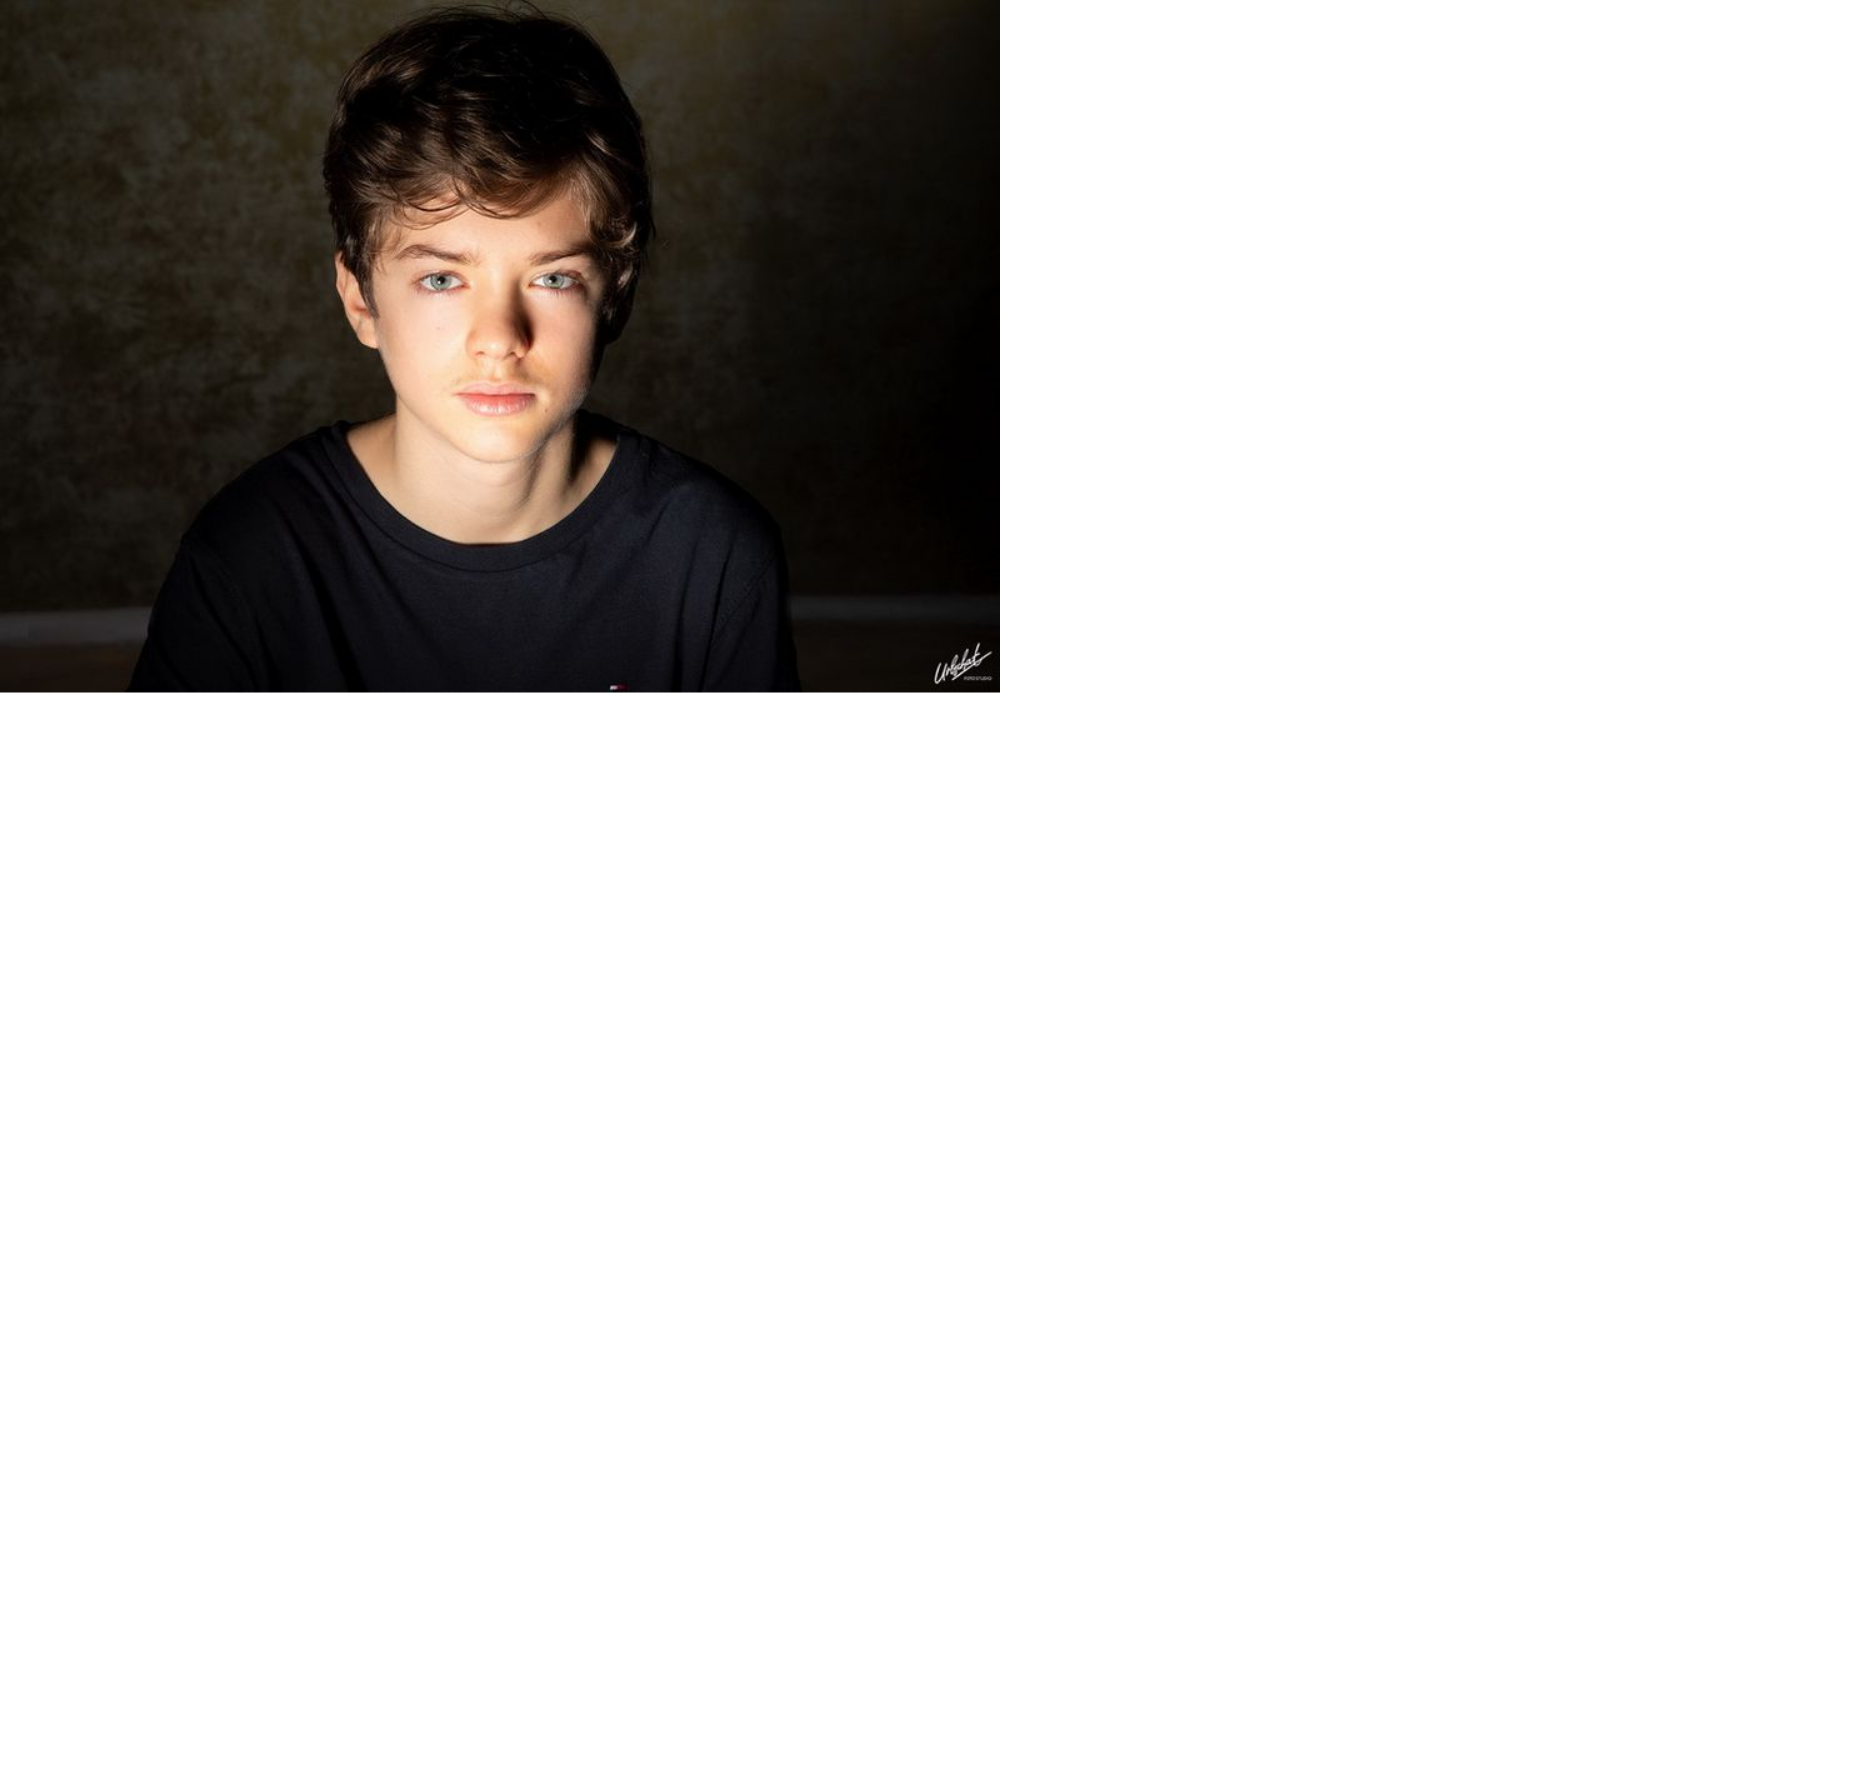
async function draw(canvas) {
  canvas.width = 1857
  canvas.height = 1777
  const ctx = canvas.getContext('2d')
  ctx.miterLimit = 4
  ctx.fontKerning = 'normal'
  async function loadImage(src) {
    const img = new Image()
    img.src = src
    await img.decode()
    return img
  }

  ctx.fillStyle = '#fff'
  ctx.fillRect(0, 0, 1857, 1777)
  ctx.drawImage(await loadImage('image0.png'), 0, 0, 1000, 693)
}

draw(document.querySelector('canvas'))
